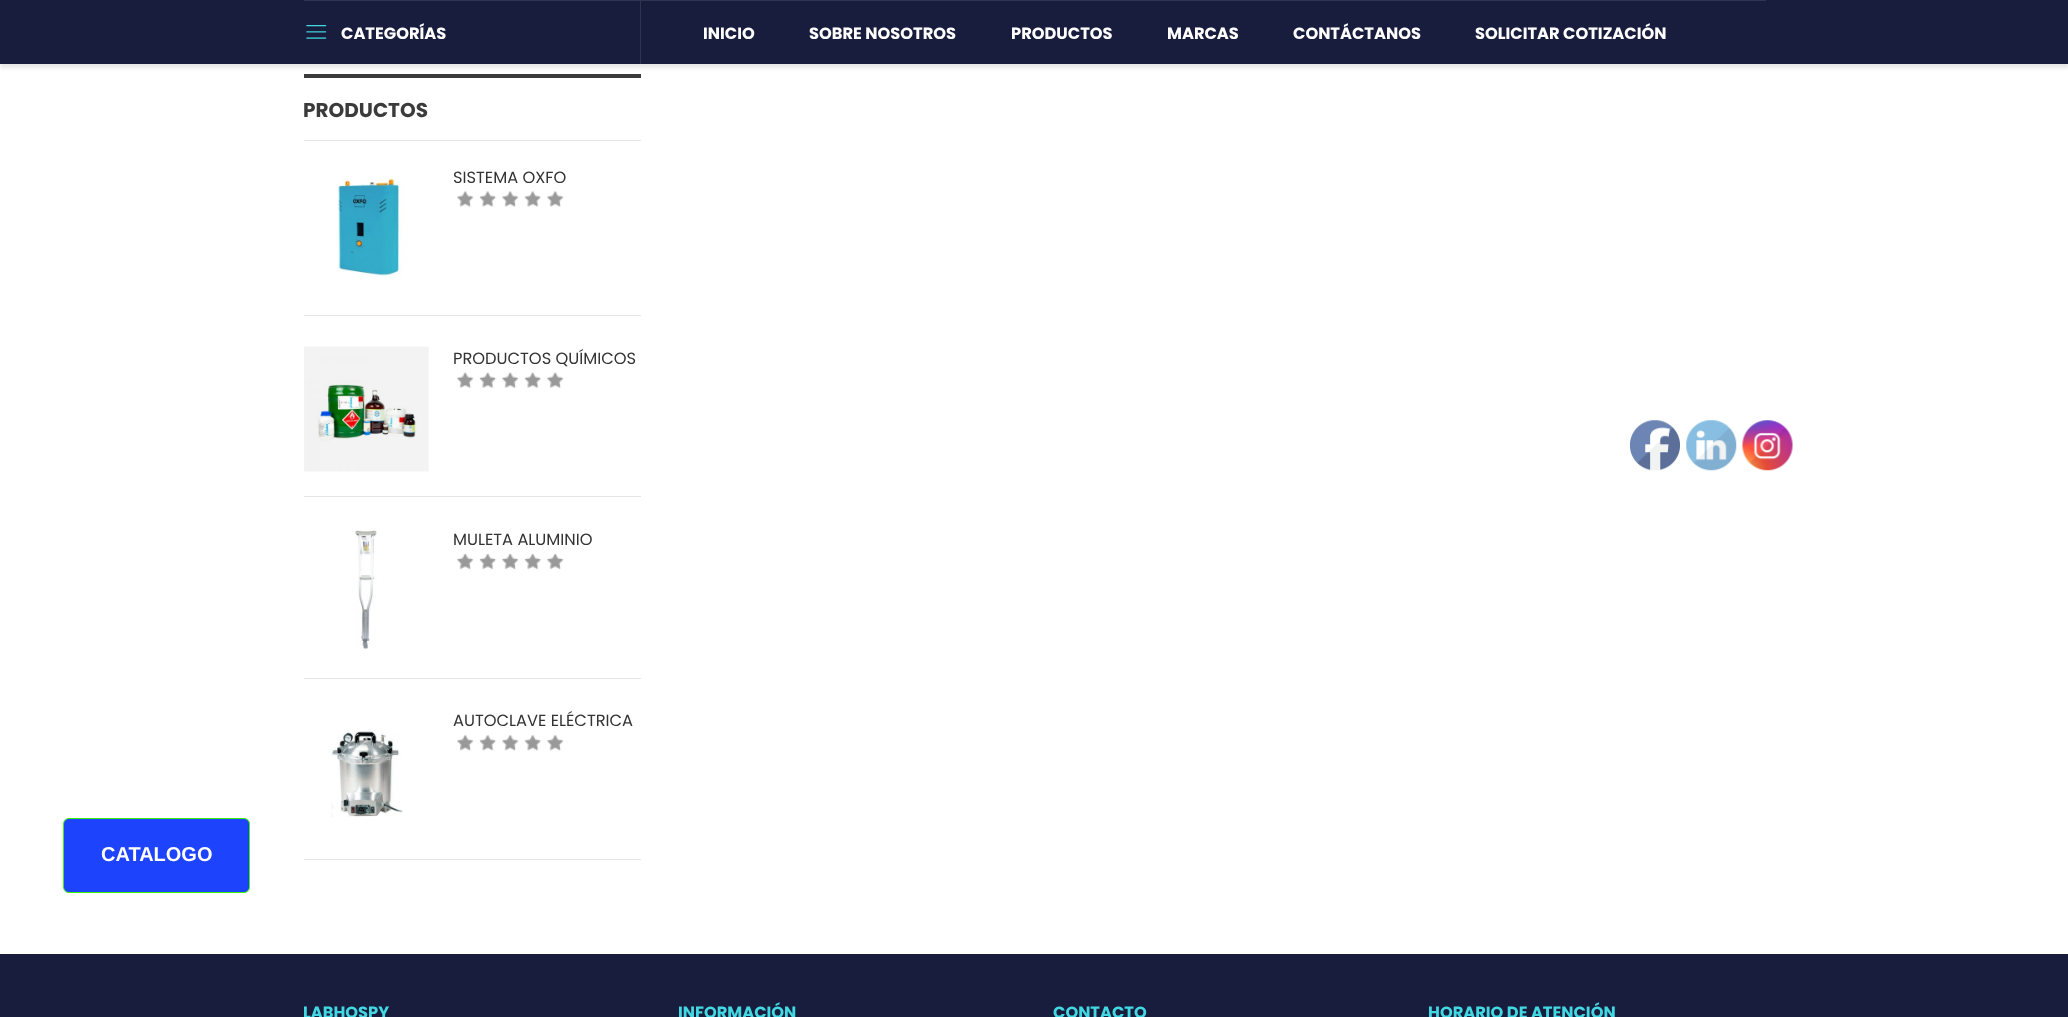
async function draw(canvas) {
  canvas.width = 2068
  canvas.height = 1017
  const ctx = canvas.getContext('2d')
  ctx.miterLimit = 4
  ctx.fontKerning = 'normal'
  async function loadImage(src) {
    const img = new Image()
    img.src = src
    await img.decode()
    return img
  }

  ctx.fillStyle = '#fff'
  ctx.fillRect(0, 0, 2068, 1017)
  ctx.fillStyle = '#3b3b3b'
  ctx.fillRect(304, 74, 337, 4)
  ctx.fillStyle = '#0000001a'
  ctx.filter = 'blur(2px)'
  ctx.beginPath()
  ctx.rect(0, 4, 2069, 64)
  ctx.fill()
  ctx.filter = 'none'
  ctx.fillStyle = '#191d3d'
  ctx.fillRect(0, 0, 2068, 64)
  ctx.fillStyle = '#303450'
  ctx.fillRect(304, 0, 1462, 1)
  ctx.fillRect(640, 1, 1, 63)
  ctx.drawImage(await loadImage('image0.png'), 306, 25, 21, 14)
  ctx.font = 'bold 16.25px Poppins'
  ctx.fillStyle = '#fff'
  ctx.fillText('CATEGORÍAS', 341, 39)
  ctx.fillText('INICIO', 703, 39)
  ctx.fillText('SOBRE NOSOTROS', 809, 39)
  ctx.fillText('PRODUCTOS', 1011, 39)
  ctx.fillText('MARCAS', 1167, 39)
  ctx.fillText('CONTÁCTANOS', 1293, 39)
  ctx.fillText('SOLICITAR COTIZACIÓN', 1475, 39)
  ctx.fillStyle = '#e5e5e5'
  ctx.fillRect(304, 140, 337, 1)
  ctx.font = 'bold 20px Poppins'
  ctx.fillStyle = '#3b3b3b'
  ctx.fillText('PRODUCTOS', 303, 117)
  ctx.fillStyle = '#e5e5e5'
  ctx.fillRect(304, 315, 337, 1)
  ctx.drawImage(await loadImage('image1.png'), 337, 178, 67, 101)
  ctx.font = '16.25px Poppins'
  ctx.fillStyle = '#333'
  ctx.fillText('SISTEMA OXFO', 453, 183)
  ctx.drawImage(await loadImage('image2.png'), 457, 191, 107, 16)
  ctx.fillStyle = '#e5e5e5'
  ctx.fillRect(304, 496, 337, 1)
  ctx.drawImage(await loadImage('image3.png'), 304, 346, 125, 126)
  ctx.fillStyle = '#333'
  ctx.fillText('PRODUCTOS QUÍMICOS', 453, 364)
  ctx.drawImage(await loadImage('image4.png'), 457, 372, 107, 16)
  ctx.fillStyle = '#e5e5e5'
  ctx.fillRect(304, 678, 337, 1)
  ctx.drawImage(await loadImage('image5.png'), 355, 528, 22, 121)
  ctx.fillStyle = '#333'
  ctx.fillText('MULETA ALUMINIO', 453, 545)
  ctx.drawImage(await loadImage('image6.png'), 457, 553, 107, 17)
  ctx.fillStyle = '#e5e5e5'
  ctx.fillRect(304, 859, 337, 1)
  ctx.fillStyle = '#333'
  ctx.fillText('AUTOCLAVE ELÉCTRICA', 453, 726)
  ctx.drawImage(await loadImage('image7.png'), 331, 731, 72, 86)
  ctx.drawImage(await loadImage('image8.png'), 457, 735, 107, 16)
  ctx.fillStyle = '#191d3d'
  ctx.fillRect(0, 954, 2068, 63)
  ctx.font = 'bold 16.25px Poppins'
  ctx.fillStyle = '#41d8e2'
  ctx.fillText('LABHOSPY', 303, 1018)
  ctx.fillText('INFORMACIÓN', 678, 1018)
  ctx.fillText('CONTACTO', 1053, 1018)
  ctx.fillText('HORARIO DE ATENCIÓN', 1428, 1018)
  ctx.drawImage(await loadImage('image9.png'), 1630, 420, 50, 51)
  ctx.drawImage(await loadImage('image10.png'), 1686, 420, 51, 51)
  ctx.drawImage(await loadImage('image11.png'), 1742, 420, 51, 51)
  ctx.fillStyle = '#1e43fc'
  ctx.beginPath()
  ctx.roundRect(63.5, 818.5, 186, 74, 5.5)
  ctx.fill()
  ctx.strokeStyle = '#38f209'
  ctx.stroke()
  ctx.font = 'bold 20px Liberation Sans'
  ctx.fillStyle = '#fff'
  ctx.fillText('CATALOGO', 101, 861)
}

draw(document.querySelector('canvas'))
